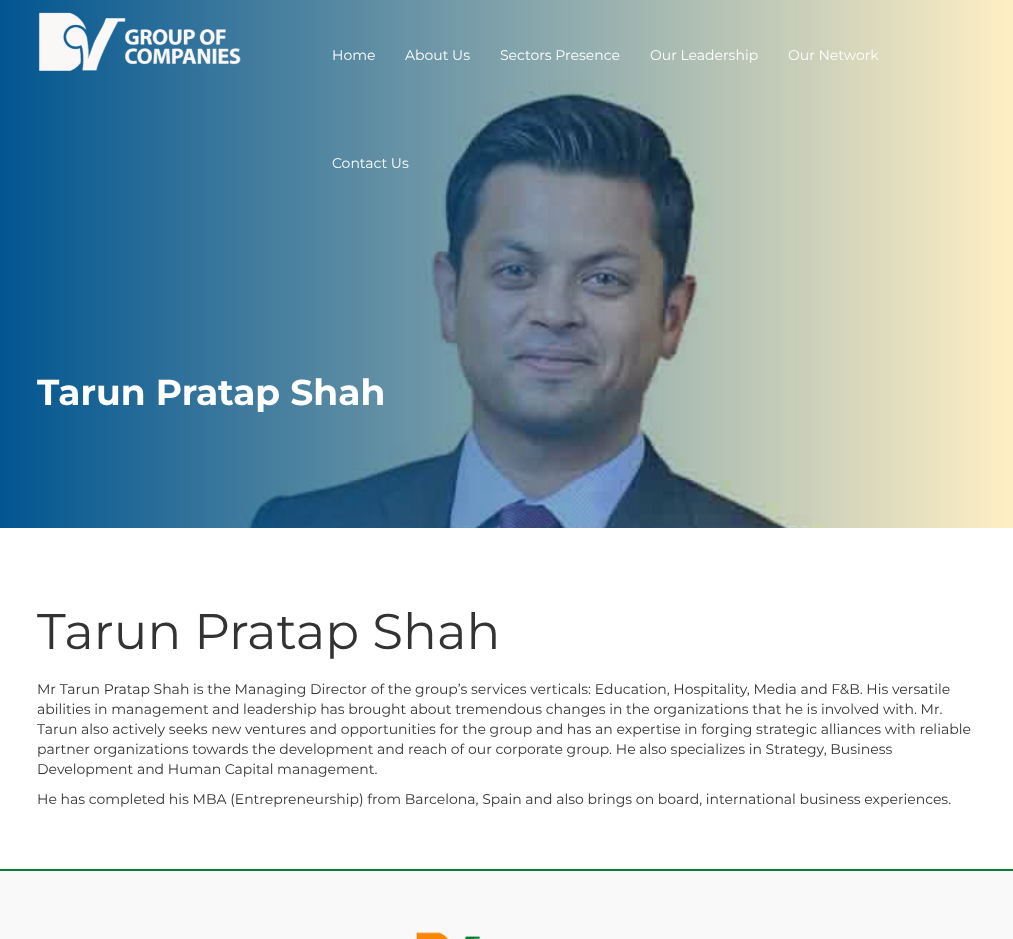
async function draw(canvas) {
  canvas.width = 1013
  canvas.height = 939
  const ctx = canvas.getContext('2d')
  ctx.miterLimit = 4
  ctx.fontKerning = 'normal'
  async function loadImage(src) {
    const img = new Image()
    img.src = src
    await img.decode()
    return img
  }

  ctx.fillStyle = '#fff'
  ctx.fillRect(0, 0, 1013, 939)
  ctx.drawImage(await loadImage('image1.png'), 0, 0, 1013, 528)
  ctx.drawImage(await loadImage('image0.png'), 38, 12, 203, 59)
  ctx.font = '14px Montserrat'
  ctx.fillText('Home', 332, 60)
  ctx.fillText('About Us', 405, 60)
  ctx.fillText('Sectors Presence', 500, 60)
  ctx.fillText('Our Leadership', 650, 60)
  ctx.fillText('Our Network', 788, 60)
  ctx.fillText('Contact Us', 332, 168)
  ctx.font = 'bold 36px Montserrat'
  ctx.fillText('Tarun Pratap Shah', 37, 405)
  ctx.font = '50px Montserrat'
  ctx.fillStyle = '#333'
  ctx.fillText('Tarun Pratap Shah', 37, 649)
  ctx.font = '14px Montserrat'
  ctx.fillText('Mr Tarun Pratap Shah is the Managing Director of the group’s services verticals: Education, Hospitality, Media and F&B. His versatile', 37, 694)
  ctx.fillText('abilities in management and leadership has brought about tremendous changes in the organizations that he is involved with. Mr.', 37, 714)
  ctx.fillText('Tarun also actively seeks new ventures and opportunities for the group and has an expertise in forging strategic alliances with reliable', 37, 734)
  ctx.fillText('partner organizations towards the development and reach of our corporate group. He also specializes in Strategy, Business', 37, 754)
  ctx.fillText('Development and Human Capital management.', 37, 774)
  ctx.fillText('He has completed his MBA (Entrepreneurship) from Barcelona, Spain and also brings on board, international business experiences.', 37, 804)
  ctx.fillStyle = '#f9f9f9'
  ctx.fillRect(0, 871, 1013, 68)
  ctx.fillStyle = '#008030'
  ctx.fillRect(0, 869, 1013, 2)
  ctx.drawImage(await loadImage('image2.png'), 416, 932, 65, 7)
}

draw(document.querySelector('canvas'))
